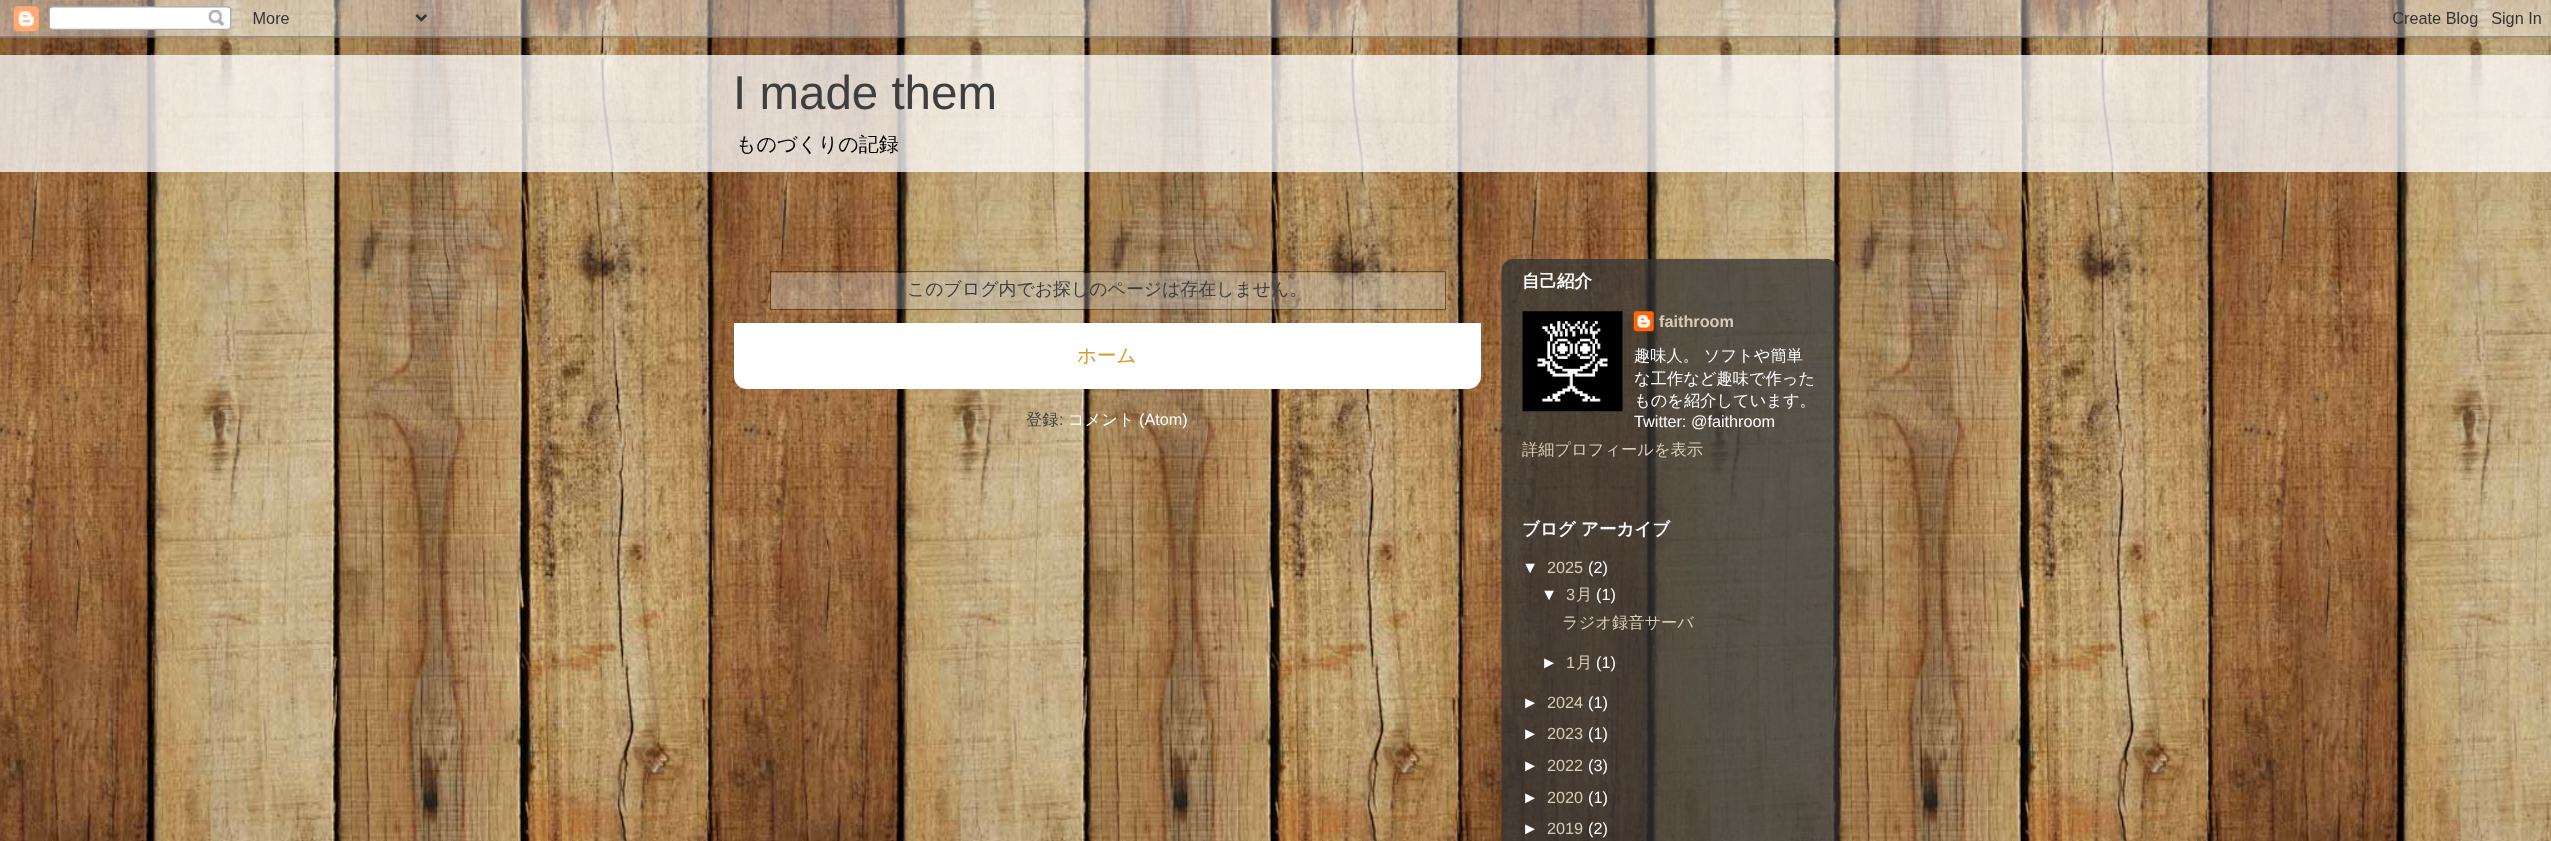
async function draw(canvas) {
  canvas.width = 2551
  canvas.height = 841
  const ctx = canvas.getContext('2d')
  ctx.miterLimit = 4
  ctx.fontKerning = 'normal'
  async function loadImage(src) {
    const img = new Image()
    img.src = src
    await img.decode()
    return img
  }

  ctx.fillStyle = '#fff'
  ctx.fillRect(0, 0, 2551, 841)
  ctx.drawImage(await loadImage('image0.png'), 0, 0, 2551, 841)
  ctx.drawImage(await loadImage('image1.png'), 0, 0, 2551, 38)
  ctx.fillStyle = '#ffffffbf'
  ctx.fillRect(0, 55, 2551, 117)
  ctx.font = '47.5px Liberation Sans'
  ctx.fillStyle = '#3e3e3e'
  ctx.fillText('I made them', 733, 109)
  ctx.font = '500 20px WenQuanYi Zen Hei'
  ctx.fillStyle = '#000'
  ctx.fillText('ものづくりの記録', 736, 151)
  ctx.strokeStyle = '#00000066'
  ctx.strokeRect(770.5, 271.5, 675, 38)
  ctx.fillStyle = '#cccccc52'
  ctx.fillRect(771, 273, 674, 36)
  ctx.font = '500 17.9px WenQuanYi Zen Hei'
  ctx.fillStyle = '#3e3e3e'
  ctx.fillText('このブログ内でお探しのページは存在しません。', 907, 295)
  ctx.fillStyle = '#fff'
  ctx.beginPath()
  ctx.roundRect(734, 323, 747, 66, [0, 0, 13, 13])
  ctx.fill()
  ctx.font = '500 19.5px WenQuanYi Zen Hei'
  ctx.fillStyle = '#d59a2d'
  ctx.fillText('ホーム', 1077, 362)
  ctx.font = '500 16.25px WenQuanYi Zen Hei'
  ctx.fillStyle = '#3e3e3e'
  ctx.fillText('登録', 1026, 425)
  ctx.font = '16.25px Liberation Sans'
  ctx.fillText(':', 1059, 425)
  ctx.font = '500 16.25px WenQuanYi Zen Hei'
  ctx.fillStyle = '#fff'
  ctx.fillText('コメント', 1068, 425)
  ctx.font = '16.25px Liberation Sans'
  ctx.fillText('(Atom)', 1139, 425)
  ctx.drawImage(await loadImage('image2.png'), 1501, 258, 338, 583)
  ctx.font = 'bold 17.5px WenQuanYi Zen Hei'
  ctx.fillText('自己紹介', 1522, 287)
  ctx.drawImage(await loadImage('image3.png'), 1522, 311, 101, 101)
  ctx.drawImage(await loadImage('image4.png'), 1633, 311, 21, 21)
  ctx.font = 'bold 16.25px Liberation Sans'
  ctx.fillStyle = '#dacbb8'
  ctx.fillText('faithroom', 1659, 327)
  ctx.font = '500 16.25px WenQuanYi Zen Hei'
  ctx.fillStyle = '#fff'
  ctx.fillText('趣味人。 ソフトや簡単', 1634, 361)
  ctx.fillText('な工作など趣味で作った', 1634, 384)
  ctx.fillText('ものを紹介しています。', 1634, 406)
  ctx.font = '16.25px Liberation Sans'
  ctx.fillText('Twitter: @faithroom', 1634, 427)
  ctx.font = '500 16.25px WenQuanYi Zen Hei'
  ctx.fillStyle = '#dacbb8'
  ctx.fillText('詳細プロフィールを表示', 1522, 455)
  ctx.font = 'bold 17.5px WenQuanYi Zen Hei'
  ctx.fillStyle = '#fff'
  ctx.fillText('ブログ アーカイブ', 1522, 535)
  ctx.font = '16.25px Liberation Sans'
  ctx.fillText('▼', 1522, 573)
  ctx.fillStyle = '#dacbb8'
  ctx.fillText('2025', 1547, 573)
  ctx.fillStyle = '#fff'
  ctx.fillText('(2)', 1588, 573)
  ctx.fillText('▼', 1541, 600)
  ctx.fillStyle = '#dacbb8'
  ctx.fillText('3', 1566, 600)
  ctx.font = '500 16.25px WenQuanYi Zen Hei'
  ctx.fillText('月', 1576, 600)
  ctx.font = '16.25px Liberation Sans'
  ctx.fillStyle = '#fff'
  ctx.fillText('(1)', 1596, 600)
  ctx.font = '500 16.25px WenQuanYi Zen Hei'
  ctx.fillStyle = '#dacbb8'
  ctx.fillText('ラジオ録音サーバ', 1562, 628)
  ctx.font = '16.25px Liberation Sans'
  ctx.fillStyle = '#fff'
  ctx.fillText('►', 1541, 668)
  ctx.fillStyle = '#dacbb8'
  ctx.fillText('1', 1566, 668)
  ctx.font = '500 16.25px WenQuanYi Zen Hei'
  ctx.fillText('月', 1576, 668)
  ctx.font = '16.25px Liberation Sans'
  ctx.fillStyle = '#fff'
  ctx.fillText('(1)', 1596, 668)
  ctx.fillText('►', 1522, 708)
  ctx.fillStyle = '#dacbb8'
  ctx.fillText('2024', 1547, 708)
  ctx.fillStyle = '#fff'
  ctx.fillText('(1)', 1588, 708)
  ctx.fillText('►', 1522, 739)
  ctx.fillStyle = '#dacbb8'
  ctx.fillText('2023', 1547, 739)
  ctx.fillStyle = '#fff'
  ctx.fillText('(1)', 1588, 739)
  ctx.fillText('►', 1522, 771)
  ctx.fillStyle = '#dacbb8'
  ctx.fillText('2022', 1547, 771)
  ctx.fillStyle = '#fff'
  ctx.fillText('(3)', 1588, 771)
  ctx.fillText('►', 1522, 803)
  ctx.fillStyle = '#dacbb8'
  ctx.fillText('2020', 1547, 803)
  ctx.fillStyle = '#fff'
  ctx.fillText('(1)', 1588, 803)
  ctx.fillText('►', 1522, 834)
  ctx.fillStyle = '#dacbb8'
  ctx.fillText('2019', 1547, 834)
  ctx.fillStyle = '#fff'
  ctx.fillText('(2)', 1588, 834)
}

draw(document.querySelector('canvas'))
